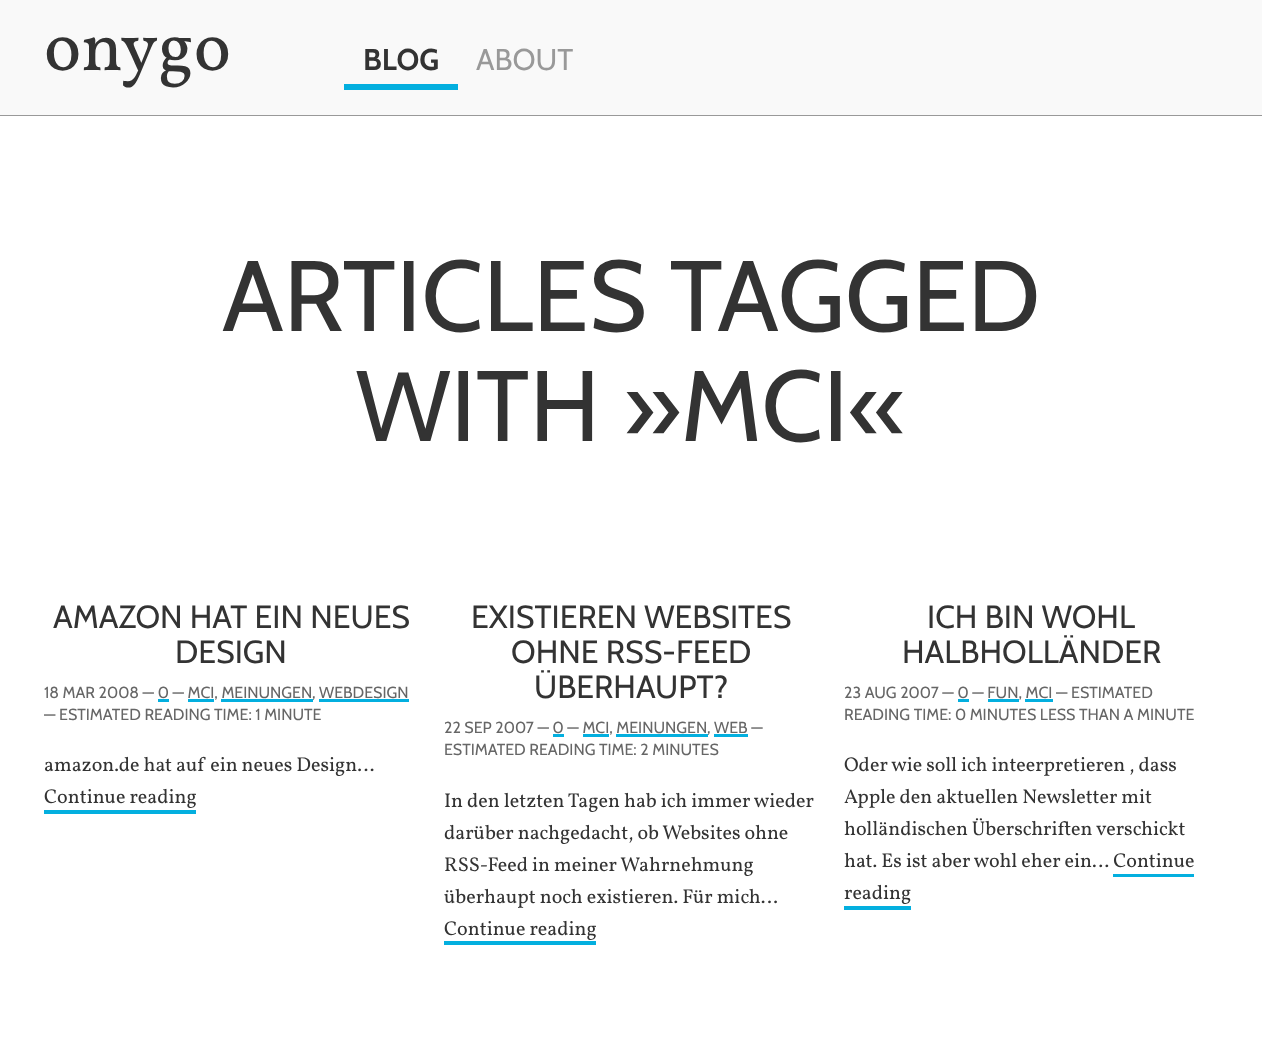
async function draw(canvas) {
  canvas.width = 1262
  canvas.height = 1037
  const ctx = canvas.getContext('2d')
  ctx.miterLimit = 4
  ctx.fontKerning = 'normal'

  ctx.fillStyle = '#fff'
  ctx.fillRect(0, 0, 1262, 1037)
  ctx.fillStyle = '#f9f9f9'
  ctx.fillRect(0, 0, 1262, 115)
  ctx.fillStyle = '#999'
  ctx.fillRect(0, 115, 1262, 1)
  ctx.font = '70px Vollkorn'
  ctx.fillStyle = '#333'
  ctx.fillText('onygo', 44, 70)
  ctx.font = 'bold 30px Cabin'
  ctx.fillText('BLOG', 363, 70)
  ctx.fillStyle = '#03afdf'
  ctx.fillRect(344, 84, 114, 6)
  ctx.font = '30px Cabin'
  ctx.fillStyle = '#999'
  ctx.fillText('ABOUT', 476, 70)
  ctx.font = '100px Cabin'
  ctx.fillStyle = '#333'
  ctx.fillText('ARTICLES TAGGED', 222, 331)
  ctx.fillText('WITH »MCI«', 356, 441)
  ctx.font = '32px Cabin'
  ctx.fillText('AMAZON HAT EIN NEUES', 53, 628)
  ctx.fillText('DESIGN', 175, 663)
  ctx.font = '16px Cabin'
  ctx.fillStyle = '#666'
  ctx.fillText('18 MAR 2008 — 0 — MCI, MEINUNGEN', 44, 698)
  ctx.fillStyle = '#03afdf'
  ctx.fillRect(221, 699, 92, 3)
  ctx.fillStyle = '#666'
  ctx.fillText(', WEBDESIGN', 312, 698)
  ctx.fillStyle = '#03afdf'
  ctx.fillRect(188, 699, 26, 3)
  ctx.fillRect(319, 699, 90, 3)
  ctx.fillRect(158, 699, 11, 3)
  ctx.fillStyle = '#666'
  ctx.fillText('— ESTIMATED READING TIME: 1 MINUTE', 44, 720)
  ctx.font = '20px Vollkorn'
  ctx.fillStyle = '#333'
  ctx.fillText('amazon.de hat auf ein neues Design…', 44, 771)
  ctx.fillText('Continue reading', 44, 803)
  ctx.fillStyle = '#03afdf'
  ctx.fillRect(44, 810, 152, 4)
  ctx.font = '32px Cabin'
  ctx.fillStyle = '#333'
  ctx.fillText('EXISTIEREN WEBSITES', 471, 628)
  ctx.fillText('OHNE RSS-FEED', 511, 663)
  ctx.fillText('ÜBERHAUPT?', 534, 698)
  ctx.font = '16px Cabin'
  ctx.fillStyle = '#666'
  ctx.fillText('22 SEP 2007 — 0 — MCI, MEINUNGEN', 444, 733)
  ctx.fillStyle = '#03afdf'
  ctx.fillRect(616, 734, 92, 3)
  ctx.fillStyle = '#666'
  ctx.fillText(', WEB —', 707, 733)
  ctx.fillStyle = '#03afdf'
  ctx.fillRect(583, 734, 26, 3)
  ctx.fillRect(714, 734, 34, 3)
  ctx.fillRect(553, 734, 11, 3)
  ctx.fillStyle = '#666'
  ctx.fillText('ESTIMATED READING TIME: 2 MINUTES', 444, 755)
  ctx.font = '20px Vollkorn'
  ctx.fillStyle = '#333'
  ctx.fillText('In den letzten Tagen hab ich immer wieder', 444, 807)
  ctx.fillText('darüber nachgedacht, ob Websites ohne', 444, 839)
  ctx.fillText('RSS-Feed in meiner Wahrnehmung', 444, 871)
  ctx.fillText('überhaupt noch existieren. Für mich…', 444, 903)
  ctx.fillText('Continue reading', 444, 935)
  ctx.fillStyle = '#03afdf'
  ctx.fillRect(444, 941, 152, 4)
  ctx.font = '32px Cabin'
  ctx.fillStyle = '#333'
  ctx.fillText('ICH BIN WOHL', 927, 628)
  ctx.fillText('HALBHOLLÄNDER', 902, 663)
  ctx.font = '16px Cabin'
  ctx.fillStyle = '#666'
  ctx.fillText('23 AUG 2007 — 0 — FUN, MCI — ESTIMATED', 844, 698)
  ctx.fillStyle = '#03afdf'
  ctx.fillRect(958, 699, 11, 3)
  ctx.fillRect(988, 699, 31, 3)
  ctx.fillRect(1025, 699, 28, 3)
  ctx.fillStyle = '#666'
  ctx.fillText('READING TIME: 0 MINUTES LESS THAN A MINUTE', 844, 720)
  ctx.font = '20px Vollkorn'
  ctx.fillStyle = '#333'
  ctx.fillText('Oder wie soll ich inteerpretieren , dass', 844, 771)
  ctx.fillText('Apple den aktuellen Newsletter mit', 844, 803)
  ctx.fillText('holländischen Überschriften verschickt', 844, 835)
  ctx.fillText('hat. Es ist aber wohl eher ein… Continue', 844, 867)
  ctx.fillText('reading', 844, 899)
  ctx.fillStyle = '#03afdf'
  ctx.fillRect(1113, 874, 81, 3)
  ctx.fillRect(844, 906, 67, 4)
}

draw(document.querySelector('canvas'))
